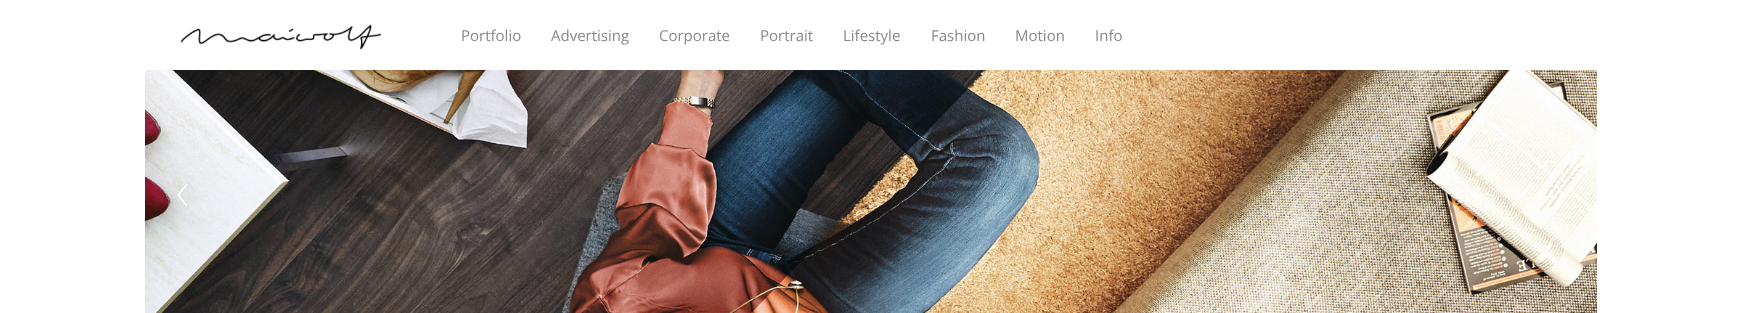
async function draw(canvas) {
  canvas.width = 1742
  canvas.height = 313
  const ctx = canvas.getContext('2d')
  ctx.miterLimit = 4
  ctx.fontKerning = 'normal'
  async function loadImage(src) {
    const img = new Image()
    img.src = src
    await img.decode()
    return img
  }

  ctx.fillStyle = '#fff'
  ctx.fillRect(0, 0, 1742, 313)
  ctx.drawImage(await loadImage('image0.png'), 180, 24, 201, 26)
  ctx.font = '15px Open Sans'
  ctx.fillStyle = '#888'
  ctx.fillText('Portfolio', 461, 41)
  ctx.fillText('Advertising', 551, 41)
  ctx.fillText('Corporate', 659, 41)
  ctx.fillText('Portrait', 760, 41)
  ctx.fillText('Lifestyle', 843, 41)
  ctx.fillText('Fashion', 931, 41)
  ctx.fillText('Motion', 1015, 41)
  ctx.fillText('Info', 1095, 41)
  ctx.drawImage(await loadImage('image1.png'), 145, 70, 1452, 243)
  ctx.fillStyle = '#fff'
  ctx.beginPath()
  ctx.moveTo(186, 206)
  ctx.lineTo(177, 195)
  ctx.lineTo(186, 184)
  ctx.lineTo(187, 185)
  ctx.lineTo(179.5, 195)
  ctx.lineTo(187, 205)
  ctx.closePath()
  ctx.fill()
  ctx.beginPath()
  ctx.moveTo(1556, 184)
  ctx.lineTo(1565, 195)
  ctx.lineTo(1556, 206)
  ctx.lineTo(1555, 205)
  ctx.lineTo(1562.5, 195)
  ctx.lineTo(1555, 185)
  ctx.closePath()
  ctx.fill()
}

draw(document.querySelector('canvas'))
